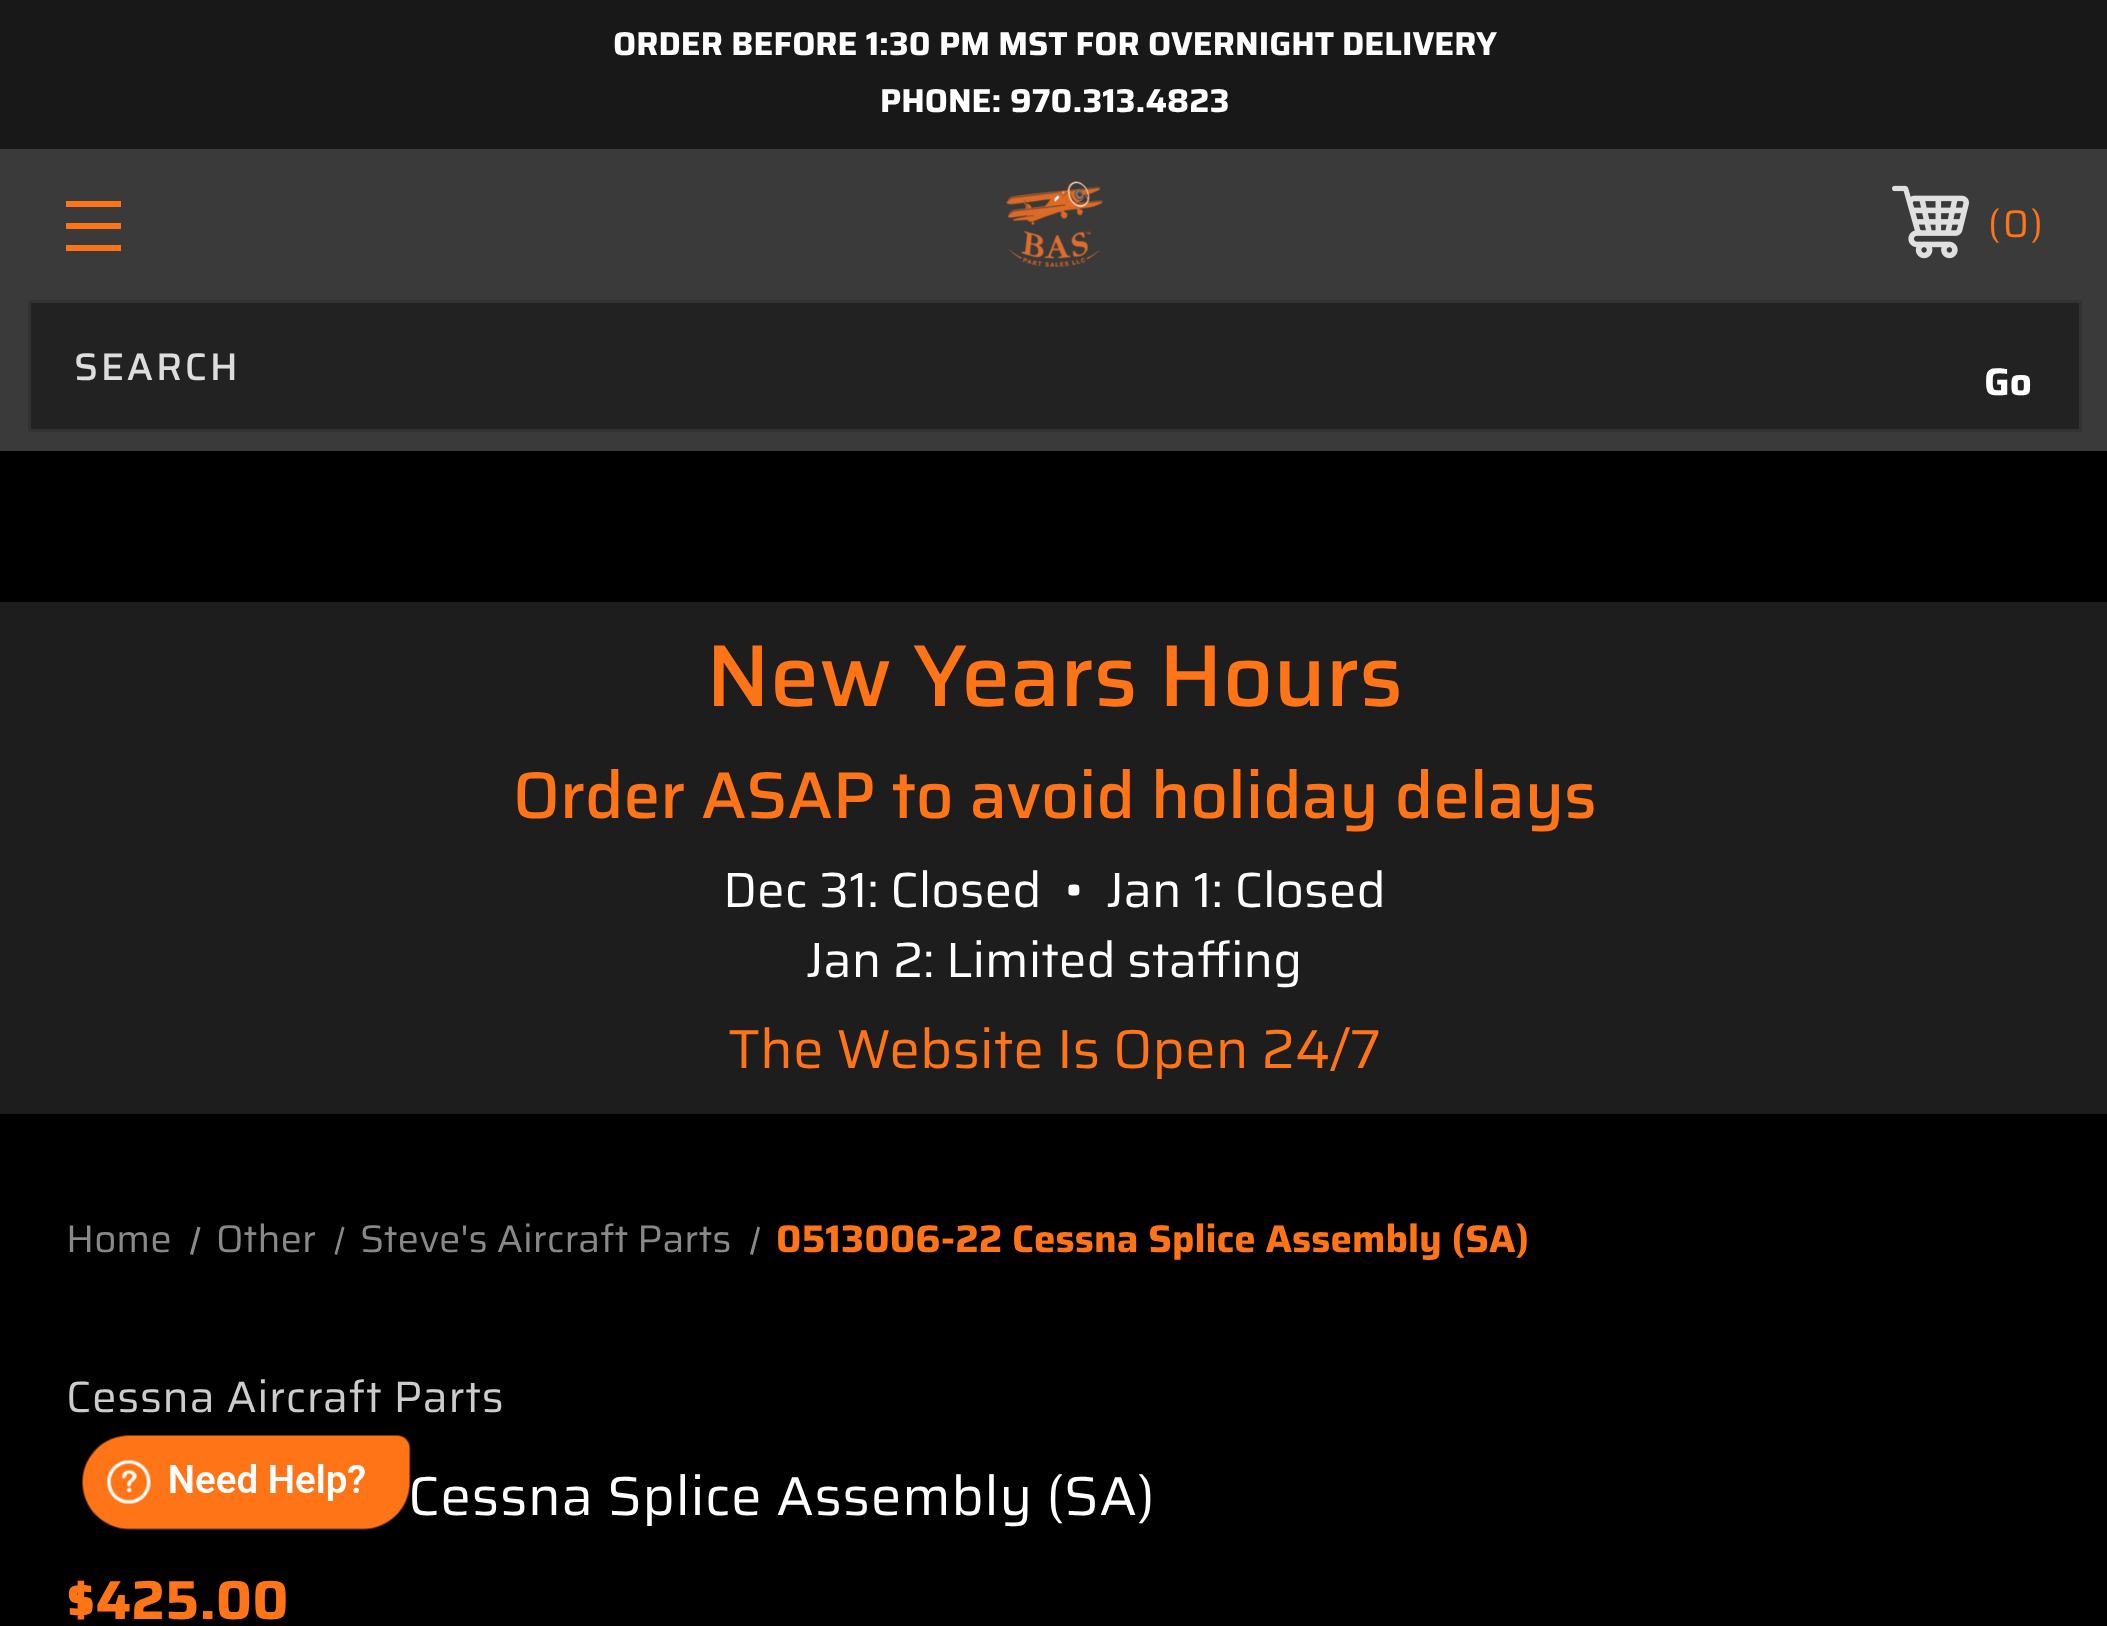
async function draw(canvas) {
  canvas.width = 2107
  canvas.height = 1626
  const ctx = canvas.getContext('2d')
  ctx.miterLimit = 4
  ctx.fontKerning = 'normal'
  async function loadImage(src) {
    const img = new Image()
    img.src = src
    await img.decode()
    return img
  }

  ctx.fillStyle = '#000'
  ctx.fillRect(0, 0, 2107, 1626)
  ctx.fillStyle = '#181818'
  ctx.fillRect(0, 0, 2107, 149)
  ctx.font = 'bold 33px Saira'
  ctx.fillStyle = '#fff'
  ctx.fillText('ORDER BEFORE 1:30 PM MST FOR OVERNIGHT DELIVERY', 613, 55)
  ctx.fillText('PHONE: 970.313.4823', 880, 112)
  ctx.fillStyle = '#3a3a3a'
  ctx.fillRect(0, 149, 2107, 302)
  ctx.fillStyle = '#ff7417'
  ctx.fillRect(66, 223, 55, 6)
  ctx.fillRect(66, 201, 55, 6)
  ctx.fillRect(66, 245, 55, 6)
  ctx.drawImage(await loadImage('image0.png'), 1006, 181, 97, 86)
  ctx.drawImage(await loadImage('image1.png'), 1892, 185, 77, 74)
  ctx.font = '38.5px Saira'
  ctx.fillText('(', 1988, 237)
  ctx.fillText('0', 2003, 237)
  ctx.fillText(')', 2031, 237)
  ctx.fillStyle = '#222'
  ctx.beginPath()
  ctx.rect(29.5, 301.5, 2051, 129)
  ctx.fill()
  ctx.strokeStyle = '#333'
  ctx.lineWidth = 3
  ctx.stroke()
  ctx.letterSpacing = '2.75px'
  ctx.font = '500 38.5px Saira'
  ctx.fillStyle = '#ddd'
  ctx.fillText('SEARCH', 74, 380)
  ctx.letterSpacing = '0px'
  ctx.font = 'bold 38.5px Saira'
  ctx.fillStyle = '#fff'
  ctx.fillText('Go', 1984, 395)
  ctx.fillStyle = '#1d1d1d'
  ctx.fillRect(0, 602, 2107, 512)
  ctx.font = '500 88px Saira'
  ctx.fillStyle = '#ff7417'
  ctx.fillText('New Years Hours', 706, 706)
  ctx.font = '500 66px Saira'
  ctx.fillText('Order ASAP to avoid holiday delays', 513, 818)
  ctx.font = '49.5px Saira'
  ctx.fillStyle = '#fff'
  ctx.fillText('Dec 31: Closed  •  Jan 1: Closed', 723, 907)
  ctx.fillText('Jan 2: Limited staffing', 806, 977)
  ctx.font = '55px Saira'
  ctx.fillStyle = '#ff7417'
  ctx.fillText('The Website Is Open 24/7', 728, 1068)
  ctx.font = '38.5px Saira'
  ctx.fillStyle = '#888'
  ctx.fillText('Home', 66, 1252)
  ctx.beginPath()
  ctx.moveTo(197.5, 1226.5)
  ctx.lineTo(200.5, 1227.5)
  ctx.lineTo(193, 1255)
  ctx.lineTo(190, 1254)
  ctx.closePath()
  ctx.fill()
  ctx.fillText('Other', 216, 1252)
  ctx.beginPath()
  ctx.moveTo(342, 1226.5)
  ctx.lineTo(344.5, 1227.5)
  ctx.lineTo(337, 1255)
  ctx.lineTo(334.5, 1254)
  ctx.closePath()
  ctx.fill()
  ctx.fillText('Steve\'s Aircraft Parts', 360, 1252)
  ctx.beginPath()
  ctx.moveTo(757.5, 1226.5)
  ctx.lineTo(760, 1227.5)
  ctx.lineTo(753, 1255)
  ctx.lineTo(750, 1254)
  ctx.closePath()
  ctx.fill()
  ctx.font = 'bold 38.5px Saira'
  ctx.fillStyle = '#ff7417'
  ctx.fillText('0513006-22 Cessna Splice Assembly (SA)', 776, 1252)
  ctx.letterSpacing = '0.7px'
  ctx.font = '44px Saira'
  ctx.fillStyle = '#ccc'
  ctx.fillText('Cessna Aircraft Parts', 66, 1412)
  ctx.font = '55px Saira'
  ctx.fillStyle = '#fff'
  ctx.fillText('Cessna Splice Assembly (SA)', 408, 1515)
  ctx.letterSpacing = '0px'
  ctx.font = 'bold 55px Saira'
  ctx.fillStyle = '#ff7417'
  ctx.fillText('$425.00', 66, 1619)
  ctx.drawImage(await loadImage('image2.png'), 82, 1435, 329, 95)
}

draw(document.querySelector('canvas'))
